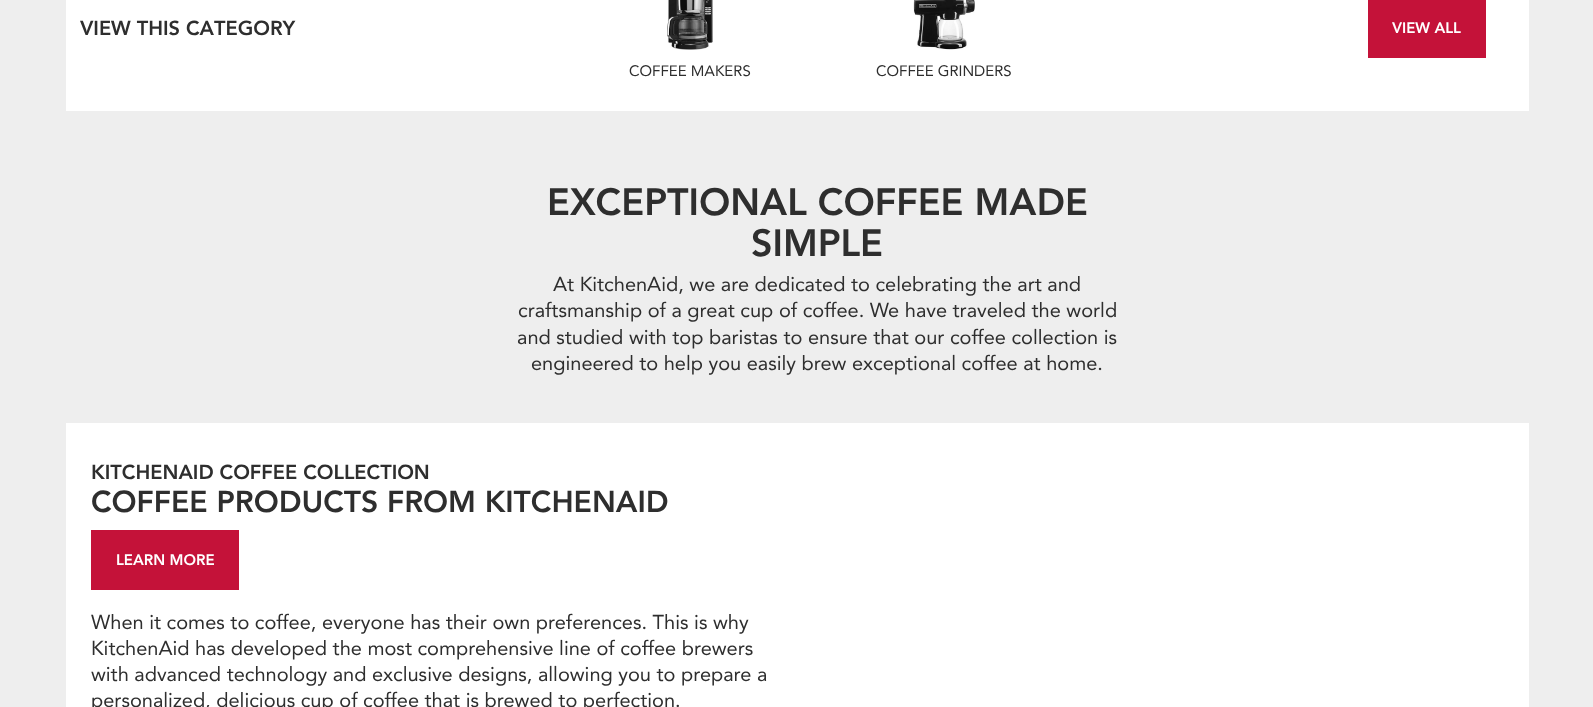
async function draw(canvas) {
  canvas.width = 1593
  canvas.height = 707
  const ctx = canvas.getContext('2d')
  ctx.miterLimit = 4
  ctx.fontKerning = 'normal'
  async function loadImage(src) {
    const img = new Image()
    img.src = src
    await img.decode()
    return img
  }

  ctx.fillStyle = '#eee'
  ctx.fillRect(0, 0, 1593, 707)
  ctx.fillStyle = '#fff'
  ctx.fillRect(66, 0, 1463, 111)
  ctx.font = '900 20px Avenir'
  ctx.fillStyle = '#2e2e2e'
  ctx.fillText('VIEW THIS CATEGORY', 80, 35)
  ctx.fillStyle = '#c41239'
  ctx.fillRect(1368, 0, 118, 58)
  ctx.font = '900 15px Avenir'
  ctx.fillStyle = '#fff'
  ctx.fillText('VIEW ALL', 1392, 33)
  ctx.drawImage(await loadImage('image0.png'), 667, 0, 46, 50)
  ctx.font = '15px Avenir'
  ctx.fillStyle = '#2e2e2e'
  ctx.fillText('COFFEE MAKERS', 629, 76)
  ctx.drawImage(await loadImage('image1.png'), 913, 0, 62, 50)
  ctx.fillText('COFFEE GRINDERS', 876, 76)
  ctx.font = '900 37.5px Avenir'
  ctx.fillText('EXCEPTIONAL COFFEE MADE', 547, 215)
  ctx.fillText('SIMPLE', 751, 256)
  ctx.font = '20px Avenir'
  ctx.fillText('At KitchenAid, we are dedicated to celebrating the art and', 553, 291)
  ctx.fillText('craftsmanship of a great cup of coffee. We have traveled the world', 518, 317)
  ctx.fillText('and studied with top baristas to ensure that our coffee collection is', 517, 344)
  ctx.fillText('engineered to help you easily brew exceptional coffee at home.', 531, 370)
  ctx.fillStyle = '#fff'
  ctx.fillRect(66, 423, 1463, 284)
  ctx.font = '900 20px Avenir'
  ctx.fillStyle = '#2e2e2e'
  ctx.fillText('KITCHENAID COFFEE COLLECTION', 91, 479)
  ctx.font = '900 30px Avenir'
  ctx.fillText('COFFEE PRODUCTS FROM KITCHENAID', 91, 512)
  ctx.fillStyle = '#c41239'
  ctx.fillRect(91, 530, 148, 60)
  ctx.font = '900 15px Avenir'
  ctx.fillStyle = '#fff'
  ctx.fillText('LEARN MORE', 116, 565)
  ctx.font = '20px Avenir'
  ctx.fillStyle = '#2e2e2e'
  ctx.fillText('When it comes to coffee, everyone has their own preferences. This is why', 91, 629)
  ctx.fillText('KitchenAid has developed the most comprehensive line of coffee brewers', 91, 655)
  ctx.fillText('with advanced technology and exclusive designs, allowing you to prepare a', 91, 681)
  ctx.fillText('personalized, delicious cup of coffee that is brewed to perfection.', 91, 707)
}

draw(document.querySelector('canvas'))
